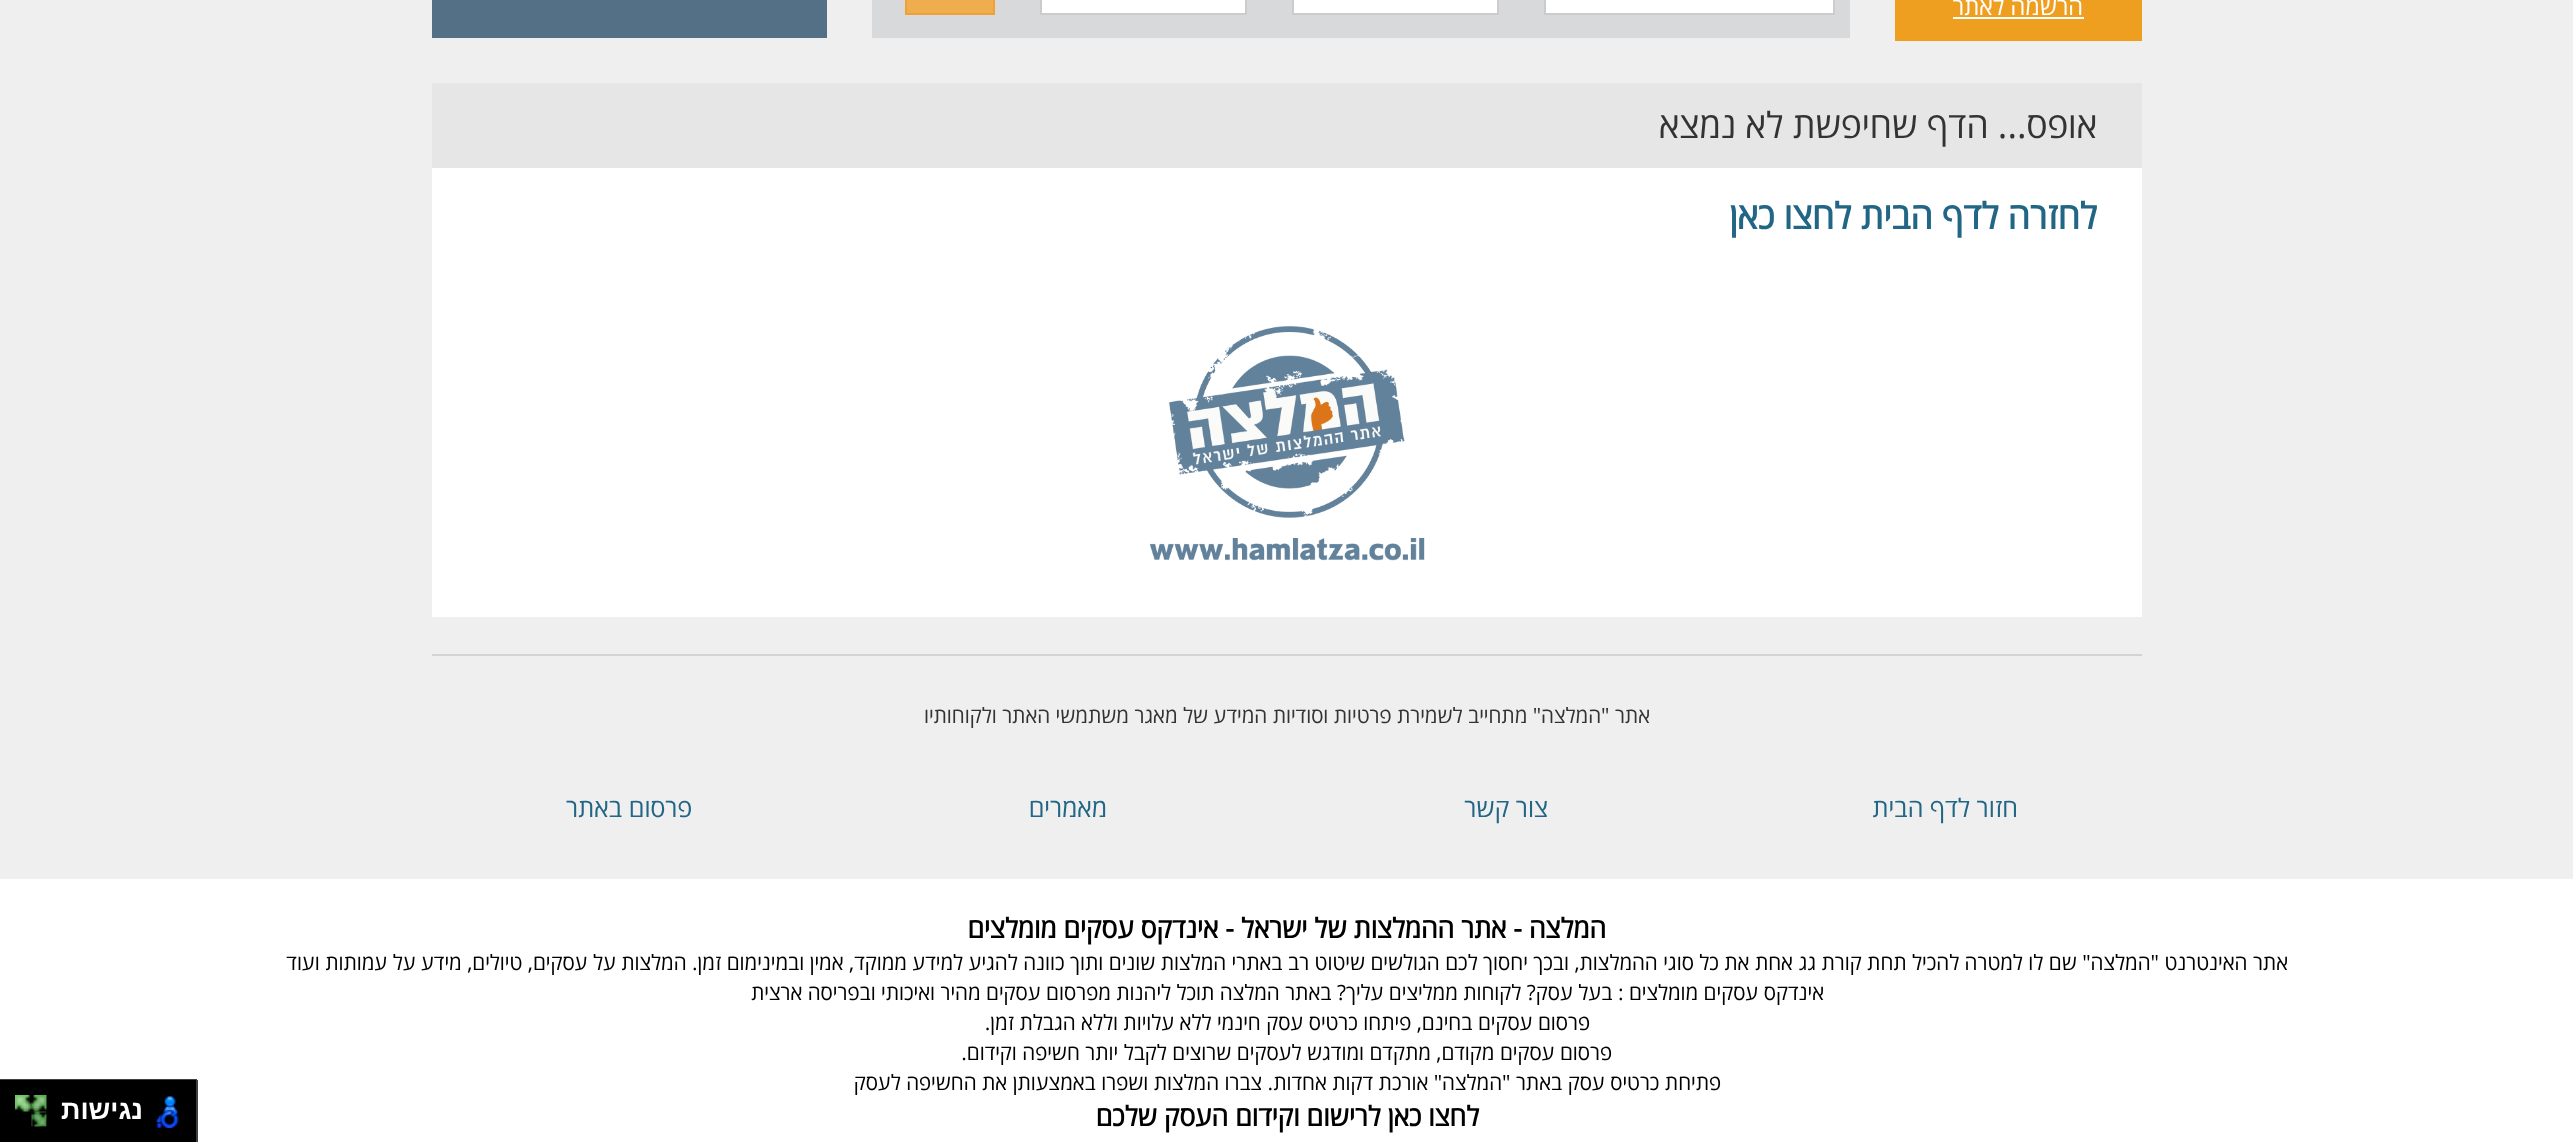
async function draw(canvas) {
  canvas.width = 2573
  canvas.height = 1142
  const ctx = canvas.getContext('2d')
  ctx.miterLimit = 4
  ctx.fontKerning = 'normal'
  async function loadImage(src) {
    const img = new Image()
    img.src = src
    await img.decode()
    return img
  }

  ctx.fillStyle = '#efefef'
  ctx.fillRect(0, 0, 2573, 1142)
  ctx.fillStyle = '#ef9f20'
  ctx.fillRect(1895, 0, 247, 41)
  ctx.direction = 'rtl'
  ctx.font = '24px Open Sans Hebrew'
  ctx.fillStyle = '#fff'
  ctx.fillText('הרשמה לאתר', 2083, 15)
  ctx.fillRect(1953, 17, 131, 2)
  ctx.fillStyle = '#d8d9da'
  ctx.fillRect(872, 0, 978, 38)
  ctx.fillStyle = '#fff'
  ctx.beginPath()
  ctx.rect(1545, -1, 289, 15)
  ctx.fill()
  ctx.strokeStyle = '#ccc'
  ctx.lineWidth = 2
  ctx.stroke()
  ctx.beginPath()
  ctx.rect(1293, -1, 205, 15)
  ctx.fill()
  ctx.stroke()
  ctx.beginPath()
  ctx.rect(1041, -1, 205, 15)
  ctx.fill()
  ctx.stroke()
  ctx.fillStyle = '#f0ad4e'
  ctx.beginPath()
  ctx.rect(906, -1, 88, 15)
  ctx.fill()
  ctx.strokeStyle = '#eea236'
  ctx.stroke()
  ctx.fillStyle = '#547086'
  ctx.fillRect(432, 0, 395, 38)
  ctx.fillStyle = '#e6e6e6'
  ctx.fillRect(432, 83, 1710, 85)
  ctx.font = '36px Open Sans Hebrew'
  ctx.fillStyle = '#333'
  ctx.fillText('אופס... הדף שחיפשת לא נמצא', 2097, 138)
  ctx.fillStyle = '#fff'
  ctx.fillRect(432, 168, 1710, 449)
  ctx.font = 'bold 36px Open Sans Hebrew'
  ctx.fillStyle = '#226685'
  ctx.fillText('לחזרה לדף הבית לחצו כאן', 2097, 229)
  ctx.drawImage(await loadImage('image0.png'), 1149, 326, 276, 235)
  ctx.fillStyle = '#d3d3d3'
  ctx.fillRect(432, 654, 1710, 2)
  ctx.font = '21px Open Sans Hebrew'
  ctx.fillStyle = '#333'
  ctx.fillText('אתר "המלצה" מתחייב לשמירת פרטיות וסודיות המידע של מאגר משתמשי האתר ולקוחותיו', 1650, 723)
  ctx.font = '25.5px Open Sans Hebrew'
  ctx.fillStyle = '#226685'
  ctx.fillText('חזור לדף הבית', 2018, 817)
  ctx.fillText('צור קשר', 1548, 817)
  ctx.fillText('מאמרים', 1107, 817)
  ctx.fillText('פרסום באתר', 692, 817)
  ctx.fillStyle = '#fff'
  ctx.fillRect(0, 879, 2573, 263)
  ctx.font = 'bold 27px Open Sans Hebrew'
  ctx.fillStyle = '#000'
  ctx.fillText('המלצה - אתר ההמלצות של ישראל - אינדקס עסקים מומלצים', 1606, 938)
  ctx.font = '21px Open Sans Hebrew'
  ctx.fillText('אתר האינטרנט "המלצה" שם לו למטרה להכיל תחת קורת גג אחת את כל סוגי ההמלצות, ובכך יחסוך לכם הגולשים שיטוט רב באתרי המלצות שונים ותוך כוונה להגיע למידע ממוקד, אמין ובמינימום זמן. המלצות על עסקים, טיולים, מידע על עמותות ועוד', 2288, 970)
  ctx.fillText('אינדקס עסקים מומלצים : בעל עסק? לקוחות ממליצים עליך? באתר המלצה תוכל ליהנות מפרסום עסקים מהיר ואיכותי ובפריסה ארצית', 1824, 1000)
  ctx.fillText('פרסום עסקים בחינם, פיתחו כרטיס עסק חינמי ללא עלויות וללא הגבלת זמן.', 1590, 1030)
  ctx.fillText('פרסום עסקים מקודם, מתקדם ומודגש לעסקים שרוצים לקבל יותר חשיפה וקידום.', 1612, 1060)
  ctx.fillText('פתיחת כרטיס עסק באתר "המלצה" אורכת דקות אחדות. צברו המלצות ושפרו באמצעותן את החשיפה לעסק', 1721, 1090)
  ctx.font = 'bold 27px Open Sans Hebrew'
  ctx.fillText('לחצו כאן לרישום וקידום העסק שלכם', 1479, 1126)
  ctx.fillStyle = '#404040'
  ctx.beginPath()
  ctx.moveTo(-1, 1079)
  ctx.lineTo(-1, 1142)
  ctx.lineTo(0, 1142)
  ctx.lineTo(0, 1080)
  ctx.lineTo(197, 1080)
  ctx.lineTo(197, 1079)
  ctx.closePath()
  ctx.fill()
  ctx.fillStyle = '#000'
  ctx.fillRect(0, 1080, 196, 62)
  ctx.save()
  ctx.beginPath()
  ctx.rect(0, 1080, 198, 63)
  ctx.clip()
  ctx.fillStyle = '#404040'
  ctx.beginPath()
  ctx.moveTo(-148, 932)
  ctx.lineTo(346, 932)
  ctx.lineTo(346, 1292)
  ctx.lineTo(-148, 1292)
  ctx.closePath()
  ctx.moveTo(-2, 1078)
  ctx.lineTo(196, 1078)
  ctx.lineTo(196, 1142)
  ctx.lineTo(-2, 1142)
  ctx.closePath()
  ctx.fill('evenodd')
  ctx.restore()
  ctx.drawImage(await loadImage('image1.png'), 155, 1096, 24, 32)
  ctx.font = 'bold 27px Liberation Sans'
  ctx.fillStyle = '#fff'
  ctx.fillText('נגישות', 143, 1119)
  ctx.drawImage(await loadImage('image3.png'), 15, 1095, 17, 17)
  ctx.drawImage(await loadImage('image2.png'), 31, 1095, 16, 17)
  ctx.drawImage(await loadImage('image4.png'), 31, 1111, 16, 16)
}

draw(document.querySelector('canvas'))
